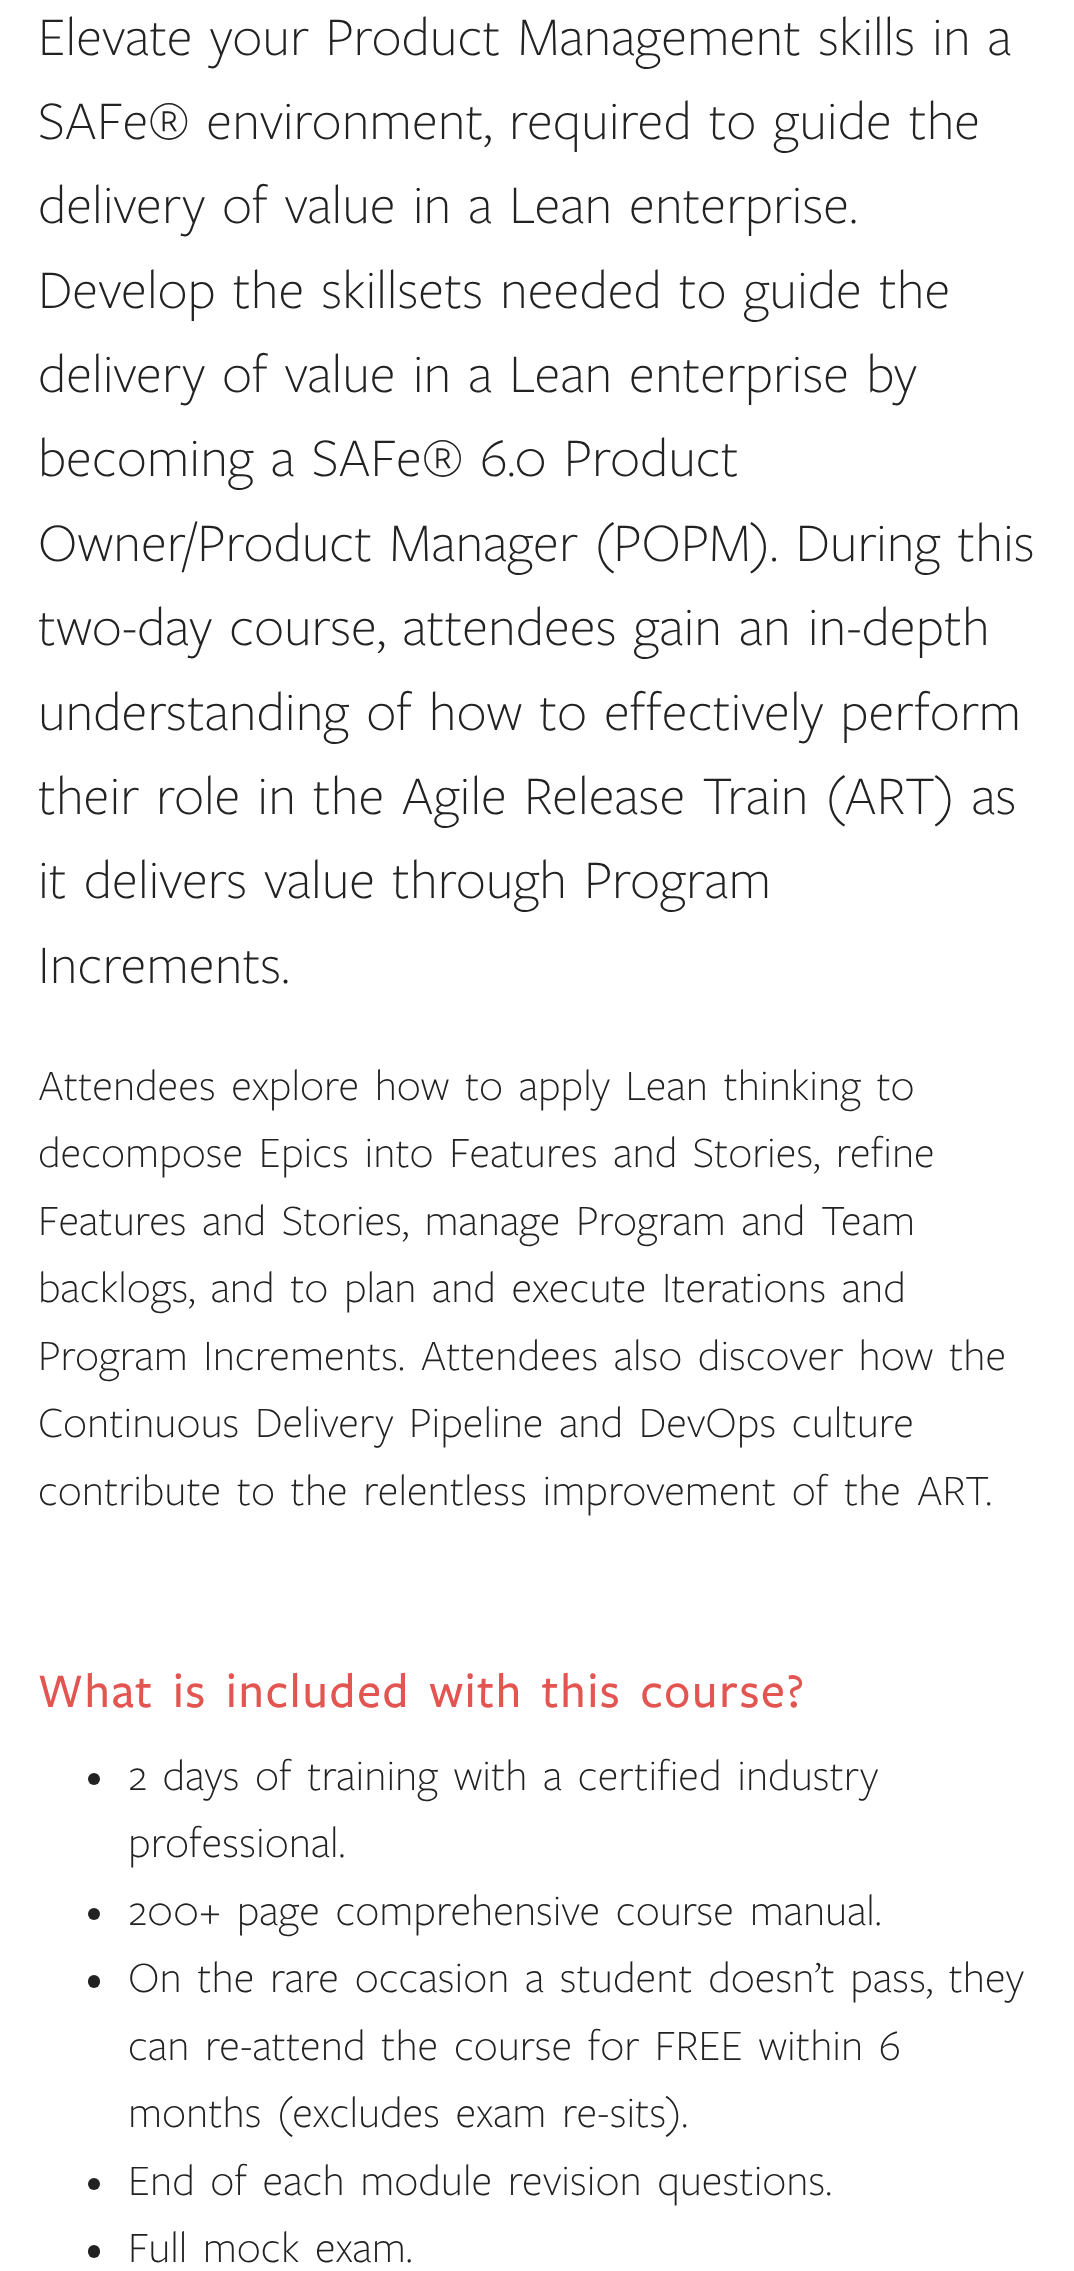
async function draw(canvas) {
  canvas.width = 1074
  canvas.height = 2271
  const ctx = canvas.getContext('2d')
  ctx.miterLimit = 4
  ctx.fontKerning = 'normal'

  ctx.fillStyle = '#fff'
  ctx.fillRect(0, 0, 1074, 2271)
  ctx.wordSpacing = '10px'
  ctx.font = '300 56.25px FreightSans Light'
  ctx.fillStyle = '#222'
  ctx.fillText('Elevate your Product Management skills in a', 38, 55)
  ctx.fillText('SAFe® environment, required to guide the', 38, 139)
  ctx.fillText('delivery of value in a Lean enterprise.', 38, 223)
  ctx.fillText('Develop the skillsets needed to guide the', 38, 308)
  ctx.fillText('delivery of value in a Lean enterprise by', 38, 392)
  ctx.fillText('becoming a SAFe® 6.0 Product', 38, 476)
  ctx.fillText('Owner/Product Manager (POPM). During this', 38, 561)
  ctx.fillText('two-day course, attendees gain an in-depth', 38, 645)
  ctx.fillText('understanding of how to effectively perform', 38, 730)
  ctx.fillText('their role in the Agile Release Train (ART) as', 38, 814)
  ctx.fillText('it delivers value through Program', 38, 898)
  ctx.wordSpacing = '0px'
  ctx.fillText('Increments.', 38, 983)
  ctx.wordSpacing = '10px'
  ctx.font = '300 45px FreightSans Light'
  ctx.fillText('Attendees explore how to apply Lean thinking to', 38, 1100)
  ctx.fillText('decompose Epics into Features and Stories, refine', 38, 1167)
  ctx.fillText('Features and Stories, manage Program and Team', 38, 1235)
  ctx.fillText('backlogs, and to plan and execute Iterations and', 38, 1302)
  ctx.fillText('Program Increments. Attendees also discover how the', 38, 1370)
  ctx.fillText('Continuous Delivery Pipeline and DevOps culture', 38, 1437)
  ctx.fillText('contribute to the relentless improvement of the ART.', 38, 1505)
  ctx.letterSpacing = '1.35px'
  ctx.font = '500 50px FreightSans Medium'
  ctx.fillStyle = '#e35550'
  ctx.fillText('What is included with this course?', 38, 1707)
  ctx.fillStyle = '#222'
  ctx.beginPath()
  ctx.arc(94, 1779, 6, 0, 2 * Math.PI)
  ctx.fill()
  ctx.letterSpacing = '0px'
  ctx.font = '300 45px FreightSans Light'
  ctx.fillText('2 days of training with a certified industry', 128, 1790)
  ctx.wordSpacing = '0px'
  ctx.fillText('professional.', 128, 1857)
  ctx.beginPath()
  ctx.arc(94, 1914, 6, 0, 2 * Math.PI)
  ctx.fill()
  ctx.wordSpacing = '10px'
  ctx.fillText('200+ page comprehensive course manual.', 128, 1925)
  ctx.beginPath()
  ctx.roundRect(88, 1975, 12, 13, 6)
  ctx.fill()
  ctx.fillText('On the rare occasion a student doesn’t pass, they', 128, 1992)
  ctx.fillText('can re-attend the course for FREE within 6', 128, 2060)
  ctx.fillText('months (excludes exam re-sits).', 128, 2127)
  ctx.beginPath()
  ctx.arc(94, 2184, 6, 0, 2 * Math.PI)
  ctx.fill()
  ctx.fillText('End of each module revision questions.', 128, 2195)
  ctx.beginPath()
  ctx.roundRect(88, 2245, 12, 13, 6)
  ctx.fill()
  ctx.fillText('Full mock exam.', 128, 2262)
}

draw(document.querySelector('canvas'))
